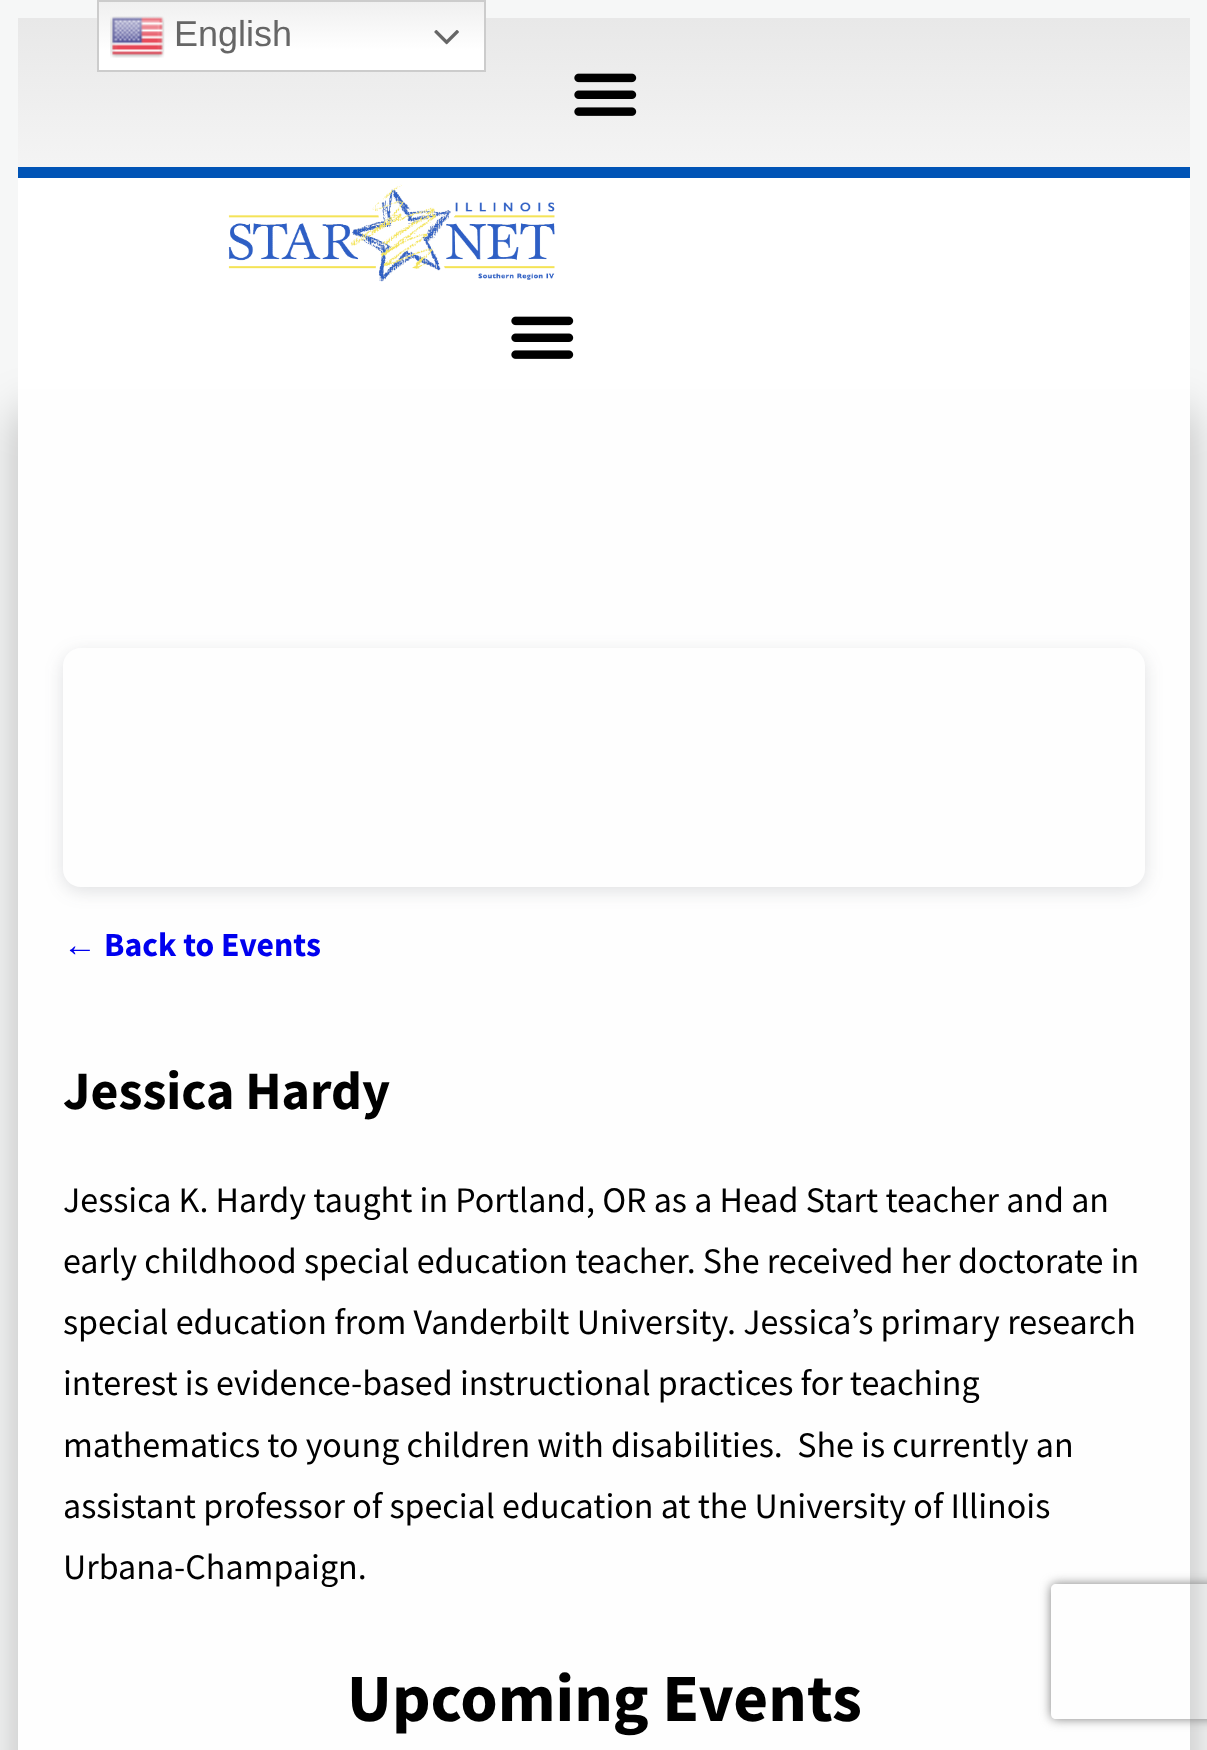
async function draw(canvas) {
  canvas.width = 1207
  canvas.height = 1750
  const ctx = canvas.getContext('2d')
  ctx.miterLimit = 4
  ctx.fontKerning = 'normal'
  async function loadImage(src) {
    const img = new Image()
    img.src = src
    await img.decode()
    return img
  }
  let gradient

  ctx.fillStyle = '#f6f7f7'
  ctx.fillRect(0, 0, 1207, 1750)
  gradient = ctx.createLinearGradient(604, 18, 604, 167)
  gradient.addColorStop(0, '#e8e8e8')
  gradient.addColorStop(1, '#f4f4f4')
  ctx.fillStyle = gradient
  ctx.fillRect(18, 18, 1172, 149)
  ctx.drawImage(await loadImage('image0.png'), 574, 73, 63, 43)
  ctx.fillStyle = '#00000040'
  ctx.filter = 'blur(22.5px)'
  ctx.beginPath()
  ctx.rect(18, 412, 1172, 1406)
  ctx.fill()
  ctx.filter = 'none'
  ctx.fillStyle = '#fff'
  ctx.fillRect(18, 178, 1172, 211)
  ctx.fillStyle = '#0054b6'
  ctx.fillRect(18, 167, 1172, 11)
  ctx.drawImage(await loadImage('image1.png'), 228, 184, 327, 98)
  ctx.drawImage(await loadImage('image2.png'), 511, 316, 63, 43)
  gradient = ctx.createLinearGradient(291, 0, 291, 72)
  gradient.addColorStop(0, '#efefef')
  gradient.addColorStop(0.7, '#fff')
  ctx.fillStyle = gradient
  ctx.fillRect(99, 2, 385, 68)
  ctx.strokeStyle = '#ccc'
  ctx.lineWidth = 2
  ctx.strokeRect(98, 1, 387, 70)
  ctx.drawImage(await loadImage('image3.png'), 110, 16, 55, 42)
  ctx.font = '36px Liberation Sans'
  ctx.fillStyle = '#666'
  ctx.fillText('English', 174, 46)
  ctx.drawImage(await loadImage('image4.png'), 434, 30, 25, 15)
  ctx.fillStyle = '#fefefe'
  ctx.fillRect(18, 389, 1172, 1361)
  ctx.save()
  ctx.beginPath()
  ctx.moveTo(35, 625)
  ctx.lineTo(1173, 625)
  ctx.lineTo(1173, 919)
  ctx.lineTo(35, 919)
  ctx.closePath()
  ctx.moveTo(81, 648)
  ctx.lineTo(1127, 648)
  ctx.bezierCurveTo(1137, 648, 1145, 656, 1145, 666)
  ctx.lineTo(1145, 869)
  ctx.bezierCurveTo(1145, 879, 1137, 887, 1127, 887)
  ctx.lineTo(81, 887)
  ctx.bezierCurveTo(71, 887, 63, 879, 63, 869)
  ctx.lineTo(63, 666)
  ctx.bezierCurveTo(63, 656, 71, 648, 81, 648)
  ctx.closePath()
  ctx.clip('evenodd')
  ctx.fillStyle = '#3f455129'
  ctx.filter = 'blur(9px)'
  ctx.beginPath()
  ctx.roundRect(63, 653, 1082, 238, 18)
  ctx.fill()
  ctx.filter = 'none'
  ctx.restore()
  ctx.font = 'bold 33.75px Liberation Sans'
  ctx.fillStyle = '#00e'
  ctx.fillText('←', 63, 956)
  ctx.font = 'bold 33.75px Source Sans Pro'
  ctx.fillText('Back to Events', 104, 956)
  ctx.font = 'bold 54px Source Sans Pro'
  ctx.fillStyle = '#000'
  ctx.fillText('Jessica Hardy', 63, 1109)
  ctx.font = '36px Source Sans Pro'
  ctx.fillText('Jessica K. Hardy taught in Portland, OR as a Head Start teacher and an', 63, 1212)
  ctx.fillText('early childhood special education teacher. She received her doctorate in', 63, 1273)
  ctx.fillText('special education from Vanderbilt University. Jessica’s primary research', 63, 1334)
  ctx.fillText('interest is evidence-based instructional practices for teaching', 63, 1395)
  ctx.fillText('mathematics to young children with disabilities.  She is currently an', 63, 1457)
  ctx.fillText('assistant professor of special education at the University of Illinois', 63, 1518)
  ctx.fillText('Urbana-Champaign.', 63, 1579)
  ctx.font = 'bold 67.5px Source Sans Pro'
  ctx.fillText('Upcoming Events', 347, 1721)
  ctx.save()
  ctx.beginPath()
  ctx.moveTo(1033, 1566)
  ctx.lineTo(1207, 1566)
  ctx.lineTo(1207, 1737)
  ctx.lineTo(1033, 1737)
  ctx.closePath()
  ctx.moveTo(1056, 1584)
  ctx.lineTo(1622, 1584)
  ctx.bezierCurveTo(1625, 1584, 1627, 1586, 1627, 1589)
  ctx.lineTo(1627, 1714)
  ctx.bezierCurveTo(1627, 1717, 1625, 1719, 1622, 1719)
  ctx.lineTo(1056, 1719)
  ctx.bezierCurveTo(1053, 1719, 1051, 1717, 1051, 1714)
  ctx.lineTo(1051, 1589)
  ctx.bezierCurveTo(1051, 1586, 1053, 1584, 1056, 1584)
  ctx.closePath()
  ctx.clip('evenodd')
  ctx.fillStyle = '#808080'
  ctx.filter = 'blur(5.5px)'
  ctx.beginPath()
  ctx.roundRect(1051, 1584, 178, 135, 5)
  ctx.fill()
  ctx.filter = 'none'
  ctx.restore()
}

draw(document.querySelector('canvas'))
